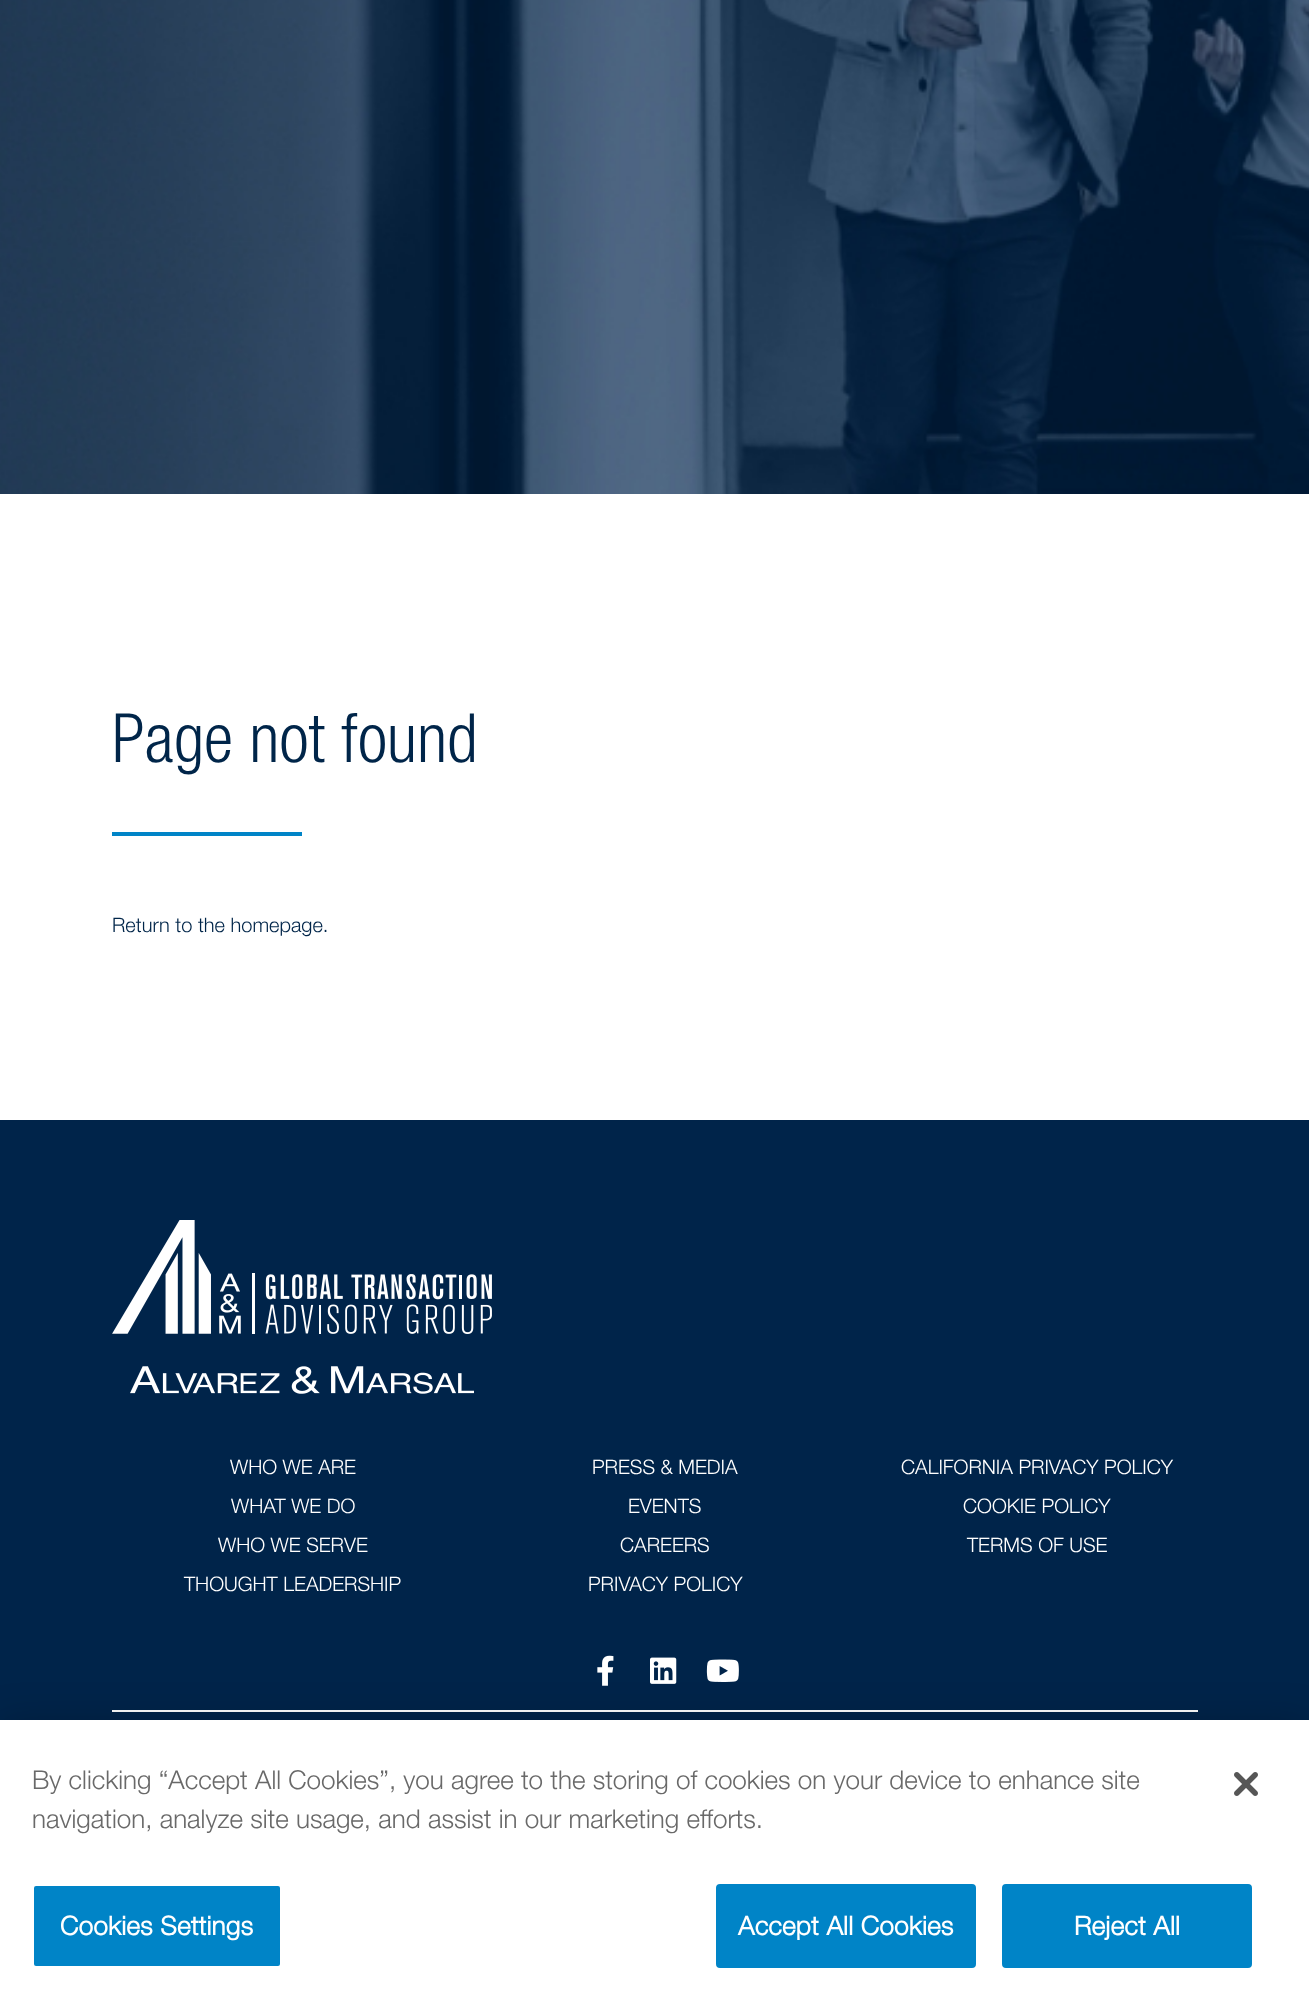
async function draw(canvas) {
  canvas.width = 1309
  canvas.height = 2005
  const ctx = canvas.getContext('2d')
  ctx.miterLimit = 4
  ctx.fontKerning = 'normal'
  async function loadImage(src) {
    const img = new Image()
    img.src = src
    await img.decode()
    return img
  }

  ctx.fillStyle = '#fff'
  ctx.fillRect(0, 0, 1309, 2005)
  ctx.drawImage(await loadImage('image0.png'), 0, 0, 1309, 494)
  ctx.font = '300 68px "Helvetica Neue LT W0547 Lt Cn"'
  ctx.fillStyle = '#002549'
  ctx.fillText('Page not found', 112, 762)
  ctx.fillStyle = '#0084c7'
  ctx.fillRect(112, 832, 190, 4)
  ctx.font = '300 20px "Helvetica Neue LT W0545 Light"'
  ctx.fillStyle = '#002549'
  ctx.fillText('Return to the homepage.', 112, 932)
  ctx.fillStyle = '#00244a'
  ctx.fillRect(0, 1120, 1309, 600)
  ctx.drawImage(await loadImage('image1.png'), 112, 1220, 380, 114)
  ctx.drawImage(await loadImage('image2.png'), 130, 1366, 344, 28)
  ctx.fillStyle = '#fff'
  ctx.fillText('WHO WE ARE', 230, 1474)
  ctx.fillText('PRESS & MEDIA', 592, 1474)
  ctx.fillText('CALIFORNIA PRIVACY POLICY', 901, 1474)
  ctx.fillText('WHAT WE DO', 231, 1513)
  ctx.fillText('EVENTS', 628, 1513)
  ctx.fillText('COOKIE POLICY', 963, 1513)
  ctx.fillText('WHO WE SERVE', 218, 1552)
  ctx.fillText('CAREERS', 620, 1552)
  ctx.fillText('TERMS OF USE', 967, 1552)
  ctx.fillText('THOUGHT LEADERSHIP', 184, 1591)
  ctx.fillText('PRIVACY POLICY', 588, 1591)
  ctx.drawImage(await loadImage('image3.png'), 597, 1655, 17, 31)
  ctx.drawImage(await loadImage('image4.png'), 650, 1657, 27, 27)
  ctx.drawImage(await loadImage('image5.png'), 706, 1659, 33, 23)
  ctx.fillRect(112, 1710, 1086, 2)
  ctx.fillStyle = '#00000033'
  ctx.filter = 'blur(18px)'
  ctx.beginPath()
  ctx.rect(0, 1720, 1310, 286)
  ctx.fill()
  ctx.filter = 'none'
  ctx.fillStyle = '#fff'
  ctx.fillRect(0, 1720, 1309, 285)
  ctx.font = '300 26px "Helvetica Neue LT W0545 Light"'
  ctx.fillStyle = '#696969'
  ctx.fillText('By clicking “Accept All Cookies”, you agree to the storing of cookies on your device to enhance site', 32, 1789)
  ctx.fillText('navigation, analyze site usage, and assist in our marketing efforts.', 32, 1828)
  ctx.fillStyle = '#0084c7'
  ctx.beginPath()
  ctx.roundRect(33, 1885, 248, 82, 3)
  ctx.fill()
  ctx.strokeStyle = '#fff'
  ctx.lineWidth = 2
  ctx.stroke()
  ctx.letterSpacing = '0.25px'
  ctx.font = 'bold 26px "Helvetica Neue LT W0545 Light"'
  ctx.fillStyle = '#fff'
  ctx.fillText('Cookies Settings', 60, 1935)
  ctx.fillStyle = '#0084c7'
  ctx.beginPath()
  ctx.roundRect(717, 1885, 258, 82, 3)
  ctx.fill()
  ctx.strokeStyle = '#0084c7'
  ctx.stroke()
  ctx.fillStyle = '#fff'
  ctx.fillText('Accept All Cookies', 738, 1935)
  ctx.fillStyle = '#0084c7'
  ctx.beginPath()
  ctx.roundRect(1003, 1885, 248, 82, 3)
  ctx.fill()
  ctx.stroke()
  ctx.fillStyle = '#fff'
  ctx.fillText('Reject All', 1074, 1935)
  ctx.drawImage(await loadImage('image6.png'), 1234, 1772, 24, 24)
}

draw(document.querySelector('canvas'))
